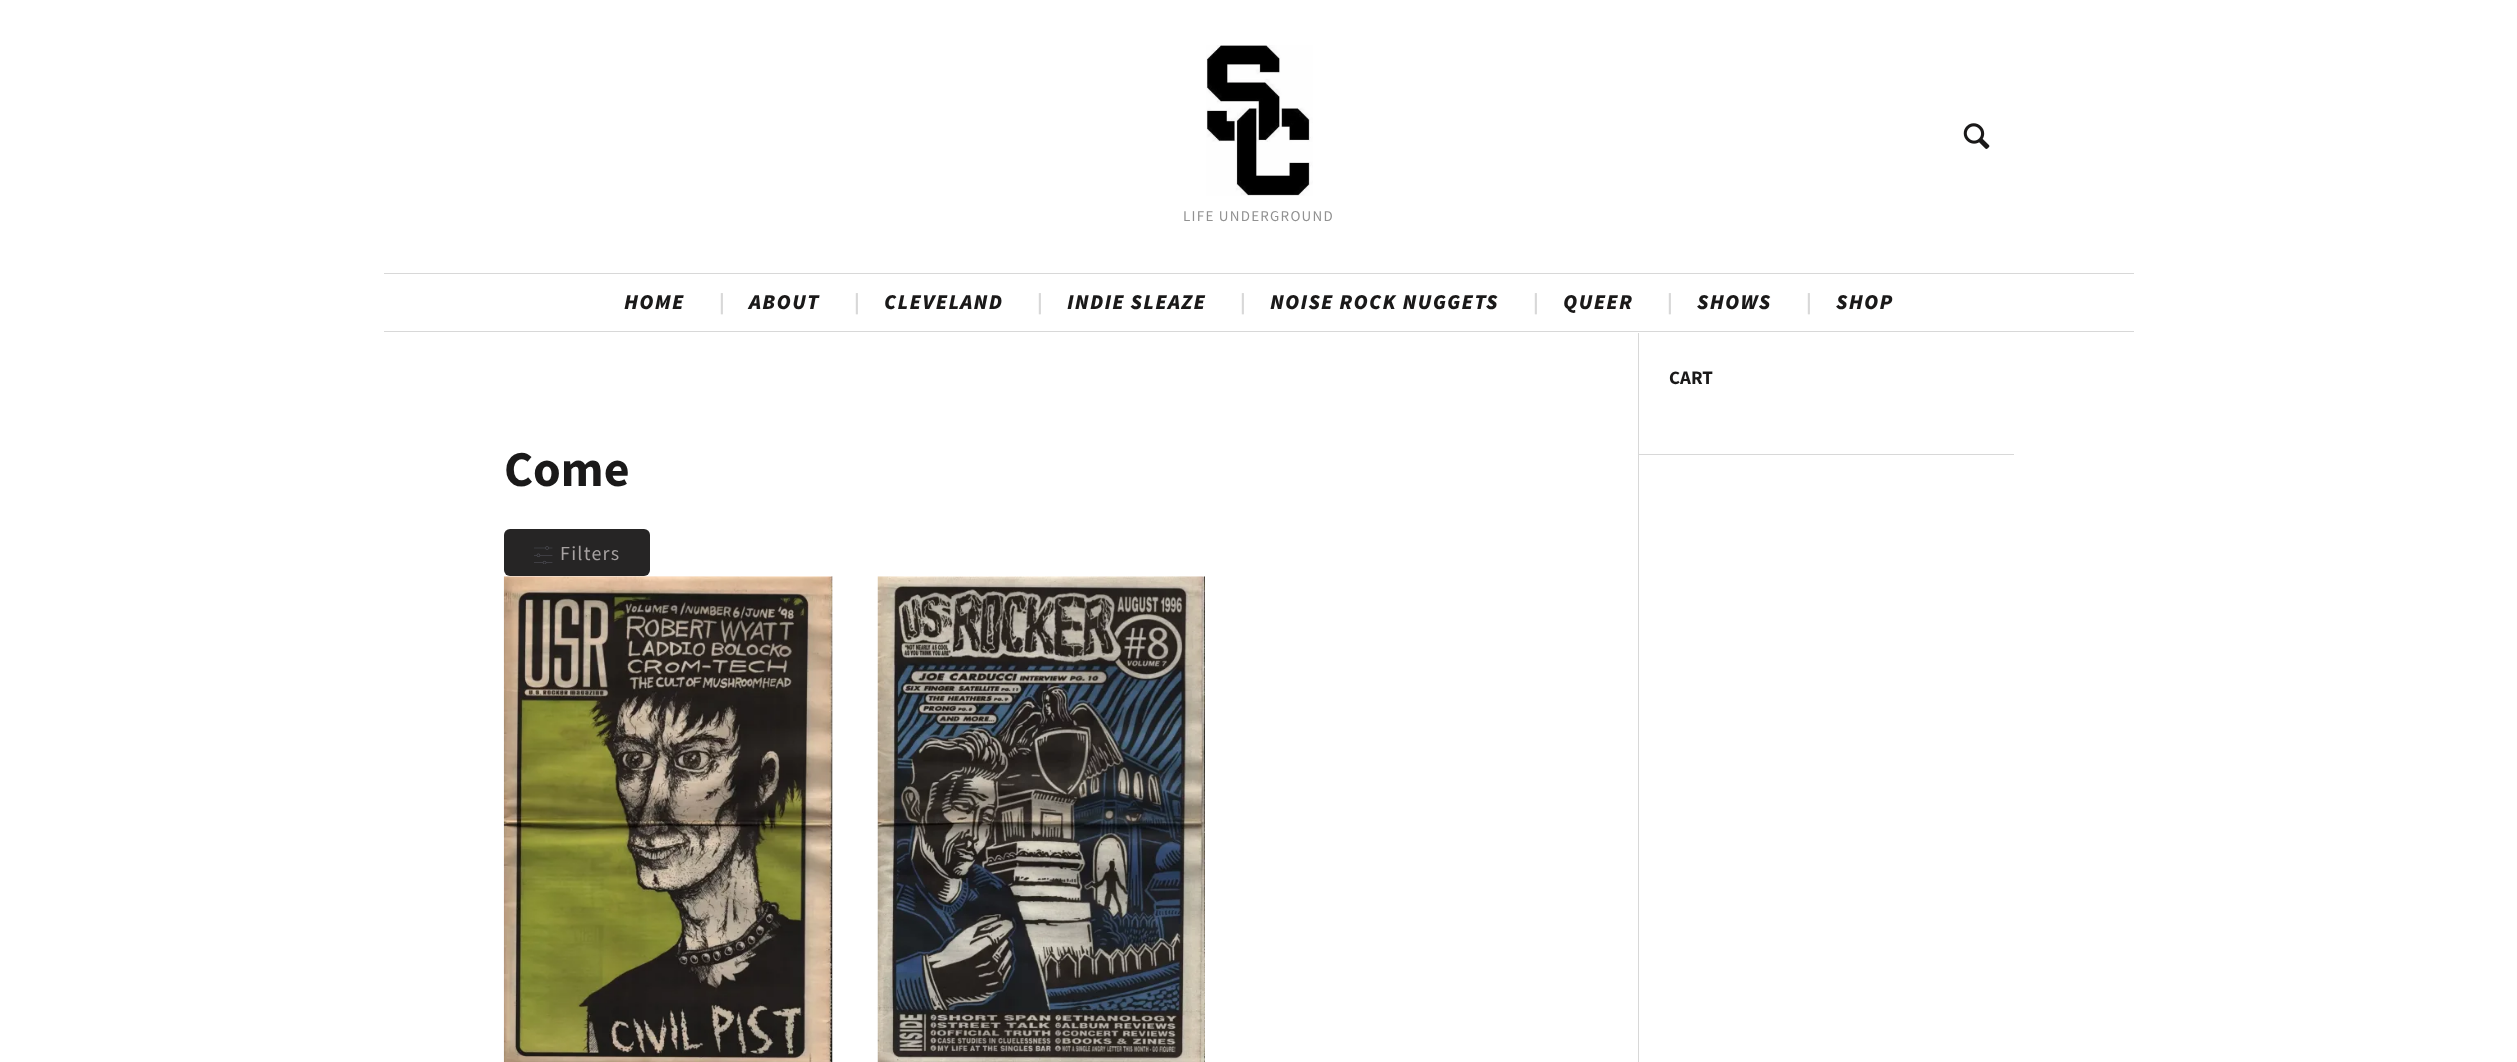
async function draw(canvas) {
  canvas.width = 2517
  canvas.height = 1062
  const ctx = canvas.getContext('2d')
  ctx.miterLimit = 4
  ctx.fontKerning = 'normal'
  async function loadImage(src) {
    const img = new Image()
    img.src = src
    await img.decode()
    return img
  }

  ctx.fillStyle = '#fff'
  ctx.fillRect(0, 0, 2517, 1062)
  ctx.drawImage(await loadImage('image0.png'), 1963, 123, 27, 26)
  ctx.drawImage(await loadImage('image1.png'), 1206, 45, 107, 151)
  ctx.letterSpacing = '1.25px'
  ctx.font = '15px Source Sans Pro'
  ctx.fillStyle = '#919191'
  ctx.fillText('LIFE UNDERGROUND', 1183, 221)
  ctx.fillStyle = '#d8d8d8'
  ctx.fillRect(384, 273, 1750, 1)
  ctx.fillRect(384, 331, 1750, 1)
  ctx.font = 'italic 900 21.25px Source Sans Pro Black'
  ctx.fillStyle = '#1a1919'
  ctx.fillText('HOME', 624, 309)
  ctx.fillStyle = '#d8d8d8'
  ctx.fillText('|', 719, 309)
  ctx.fillStyle = '#1a1919'
  ctx.fillText('ABOUT', 749, 309)
  ctx.fillStyle = '#d8d8d8'
  ctx.fillText('|', 854, 309)
  ctx.fillStyle = '#1a1919'
  ctx.fillText('CLEVELAND', 884, 309)
  ctx.fillStyle = '#d8d8d8'
  ctx.fillText('|', 1037, 309)
  ctx.fillStyle = '#1a1919'
  ctx.fillText('INDIE SLEAZE', 1067, 309)
  ctx.fillStyle = '#d8d8d8'
  ctx.fillText('|', 1240, 309)
  ctx.fillStyle = '#1a1919'
  ctx.fillText('NOISE ROCK NUGGETS', 1270, 309)
  ctx.fillStyle = '#d8d8d8'
  ctx.fillText('|', 1533, 309)
  ctx.fillStyle = '#1a1919'
  ctx.fillText('QUEER', 1563, 309)
  ctx.fillStyle = '#d8d8d8'
  ctx.fillText('|', 1667, 309)
  ctx.fillStyle = '#1a1919'
  ctx.fillText('SHOWS', 1697, 309)
  ctx.fillStyle = '#d8d8d8'
  ctx.fillText('|', 1806, 309)
  ctx.fillStyle = '#1a1919'
  ctx.fillText('SHOP', 1836, 309)
  ctx.fillStyle = '#d8d8d8'
  ctx.fillRect(1639, 454, 375, 1)
  ctx.letterSpacing = '0px'
  ctx.font = 'bold 19px Source Sans Pro'
  ctx.fillStyle = '#1a1919'
  ctx.fillText('CART', 1669, 384)
  ctx.font = 'bold 50px Source Sans Pro'
  ctx.fillText('Come', 504, 486)
  ctx.fillStyle = '#262525'
  ctx.beginPath()
  ctx.roundRect(504, 529, 146, 47, 6)
  ctx.fill()
  ctx.drawImage(await loadImage('image2.png'), 534, 546, 19, 18)
  ctx.letterSpacing = '1.25px'
  ctx.font = '20px Source Sans Pro'
  ctx.fillStyle = '#a6a1a1'
  ctx.fillText('Filters', 560, 560)
  ctx.drawImage(await loadImage('image3.png'), 503, 576, 330, 486)
  ctx.drawImage(await loadImage('image4.png'), 877, 576, 328, 486)
  ctx.fillStyle = '#d8d8d8'
  ctx.fillRect(1638, 333, 1, 729)
}

draw(document.querySelector('canvas'))
